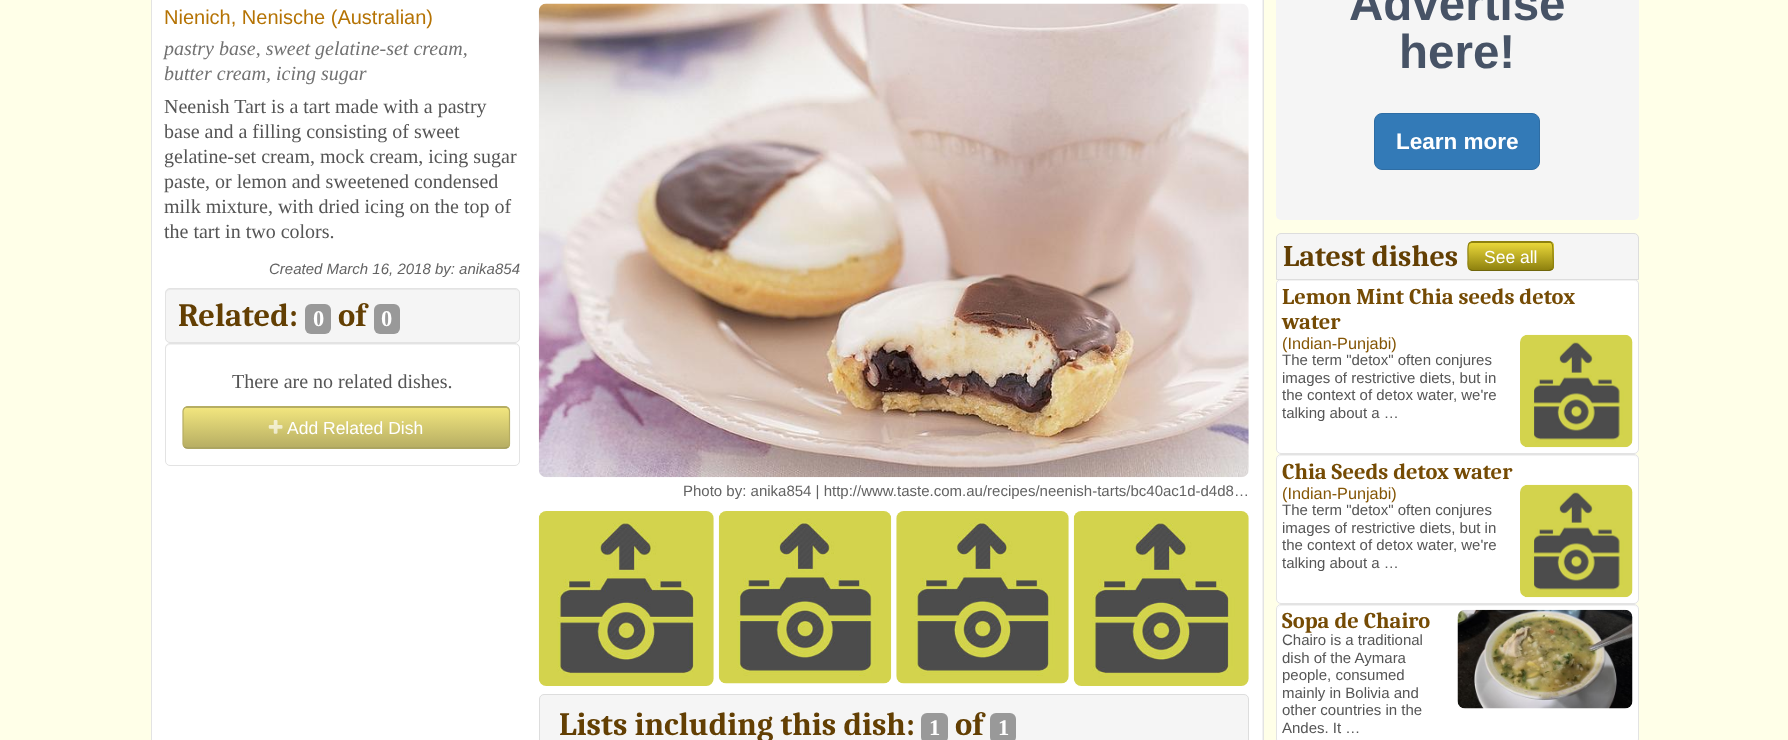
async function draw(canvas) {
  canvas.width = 1788
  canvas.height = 740
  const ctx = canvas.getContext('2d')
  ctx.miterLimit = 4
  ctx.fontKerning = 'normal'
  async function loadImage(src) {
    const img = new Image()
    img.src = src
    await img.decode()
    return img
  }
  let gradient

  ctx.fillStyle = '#ffffe8'
  ctx.fillRect(0, 0, 1788, 740)
  ctx.fillStyle = '#fff'
  ctx.fillRect(152, 0, 1110, 740)
  ctx.fillStyle = '#f2f2f2'
  ctx.beginPath()
  ctx.moveTo(156, -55)
  ctx.lineTo(1259, -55)
  ctx.bezierCurveTo(1261, -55, 1262, -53, 1262, -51)
  ctx.lineTo(1262, 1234)
  ctx.bezierCurveTo(1263, 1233, 1263, 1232, 1263, 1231)
  ctx.lineTo(1263, -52)
  ctx.bezierCurveTo(1263, -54, 1261, -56, 1259, -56)
  ctx.lineTo(157, -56)
  ctx.bezierCurveTo(156, -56, 154, -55, 154, -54)
  ctx.closePath()
  ctx.fill()
  ctx.strokeStyle = '#e3e3e3'
  ctx.strokeRect(151.5, -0.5, 1112, 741)
  ctx.font = '20px Liberation Sans'
  ctx.fillStyle = '#b57304'
  ctx.fillText('Nienich, Nenische (Australian)', 164, 24)
  ctx.font = 'italic 20px Liberation Serif'
  ctx.fillStyle = '#727272'
  ctx.fillText('pastry base, sweet gelatine-set cream,', 164, 55)
  ctx.fillText('butter cream, icing sugar', 164, 80)
  ctx.font = '20px Liberation Serif'
  ctx.fillStyle = '#555'
  ctx.fillText('Neenish Tart is a tart made with a pastry', 164, 113)
  ctx.fillText('base and a filling consisting of sweet', 164, 138)
  ctx.fillText('gelatine-set cream, mock cream, icing sugar', 164, 163)
  ctx.fillText('paste, or lemon and sweetened condensed', 164, 188)
  ctx.fillText('milk mixture, with dried icing on the top of', 164, 213)
  ctx.fillText('the tart in two colors.', 164, 238)
  ctx.font = 'italic 15px Liberation Sans'
  ctx.fillStyle = '#636363'
  ctx.fillText('Created March 16, 2018 by: anika854', 269, 274)
  ctx.fillStyle = '#f5f5f5'
  ctx.beginPath()
  ctx.roundRect(165, 288, 355, 55, 5)
  ctx.fill()
  ctx.fillStyle = '#e9e9e9'
  ctx.beginPath()
  ctx.moveTo(170, 290)
  ctx.lineTo(515, 290)
  ctx.bezierCurveTo(517, 290, 519, 292, 519, 294)
  ctx.lineTo(518, 291)
  ctx.lineTo(516, 289)
  ctx.lineTo(170, 289)
  ctx.bezierCurveTo(167, 289, 166, 291, 166, 294)
  ctx.bezierCurveTo(166, 292, 168, 290, 170, 290)
  ctx.closePath()
  ctx.fill()
  ctx.beginPath()
  ctx.roundRect(165.5, 288.5, 354, 54, 4.5)
  ctx.stroke()
  ctx.font = 'bold 32.5px Caladea'
  ctx.fillStyle = '#633f03'
  ctx.fillText('Related:', 178, 326)
  ctx.fillStyle = '#999'
  ctx.beginPath()
  ctx.roundRect(305, 304, 26, 30, 6)
  ctx.fill()
  ctx.font = 'bold 22.5px Liberation Serif'
  ctx.fillStyle = '#fff'
  ctx.fillText('0', 313, 326)
  ctx.font = 'bold 32.5px Caladea'
  ctx.fillStyle = '#633f03'
  ctx.fillText('of', 338, 326)
  ctx.fillStyle = '#999'
  ctx.beginPath()
  ctx.roundRect(374, 304, 26, 30, 6)
  ctx.fill()
  ctx.font = 'bold 22.5px Liberation Serif'
  ctx.fillStyle = '#fff'
  ctx.fillText('0', 381, 326)
  ctx.fillStyle = '#f2f2f2'
  ctx.beginPath()
  ctx.moveTo(170, 345)
  ctx.lineTo(515, 345)
  ctx.bezierCurveTo(517, 345, 519, 347, 519, 349)
  ctx.lineTo(518, 346)
  ctx.lineTo(516, 344)
  ctx.lineTo(170, 344)
  ctx.bezierCurveTo(167, 344, 166, 346, 166, 349)
  ctx.bezierCurveTo(166, 347, 168, 345, 170, 345)
  ctx.closePath()
  ctx.fill()
  ctx.beginPath()
  ctx.roundRect(165.5, 343.5, 354, 122, 4.5)
  ctx.stroke()
  ctx.font = '20px Liberation Serif'
  ctx.fillStyle = '#555'
  ctx.fillText('There are no related dishes.', 232, 388)
  ctx.fillStyle = '#b6ae64'
  ctx.beginPath()
  ctx.roundRect(183, 406, 327, 43, 5)
  ctx.fill()
  ctx.save()
  ctx.beginPath()
  ctx.roundRect(183, 406, 327, 43, 5)
  ctx.clip()
  gradient = ctx.createLinearGradient(346, 408, 346, 448)
  gradient.addColorStop(0, '#f1e57e')
  gradient.addColorStop(1, '#b6ad63')
  ctx.fillStyle = gradient
  ctx.fillRect(183, 408, 327, 40)
  ctx.restore()
  ctx.beginPath()
  ctx.moveTo(508, 447)
  ctx.bezierCurveTo(507.5, 447.5, 506, 448, 505, 448)
  ctx.lineTo(187.5, 448)
  ctx.bezierCurveTo(186.5, 448, 185, 447.5, 184.5, 447)
  ctx.strokeStyle = '#a29c61'
  ctx.lineWidth = 1.2
  ctx.stroke()
  ctx.beginPath()
  ctx.moveTo(184.5, 447)
  ctx.bezierCurveTo(183.5, 446, 183, 445, 183, 444)
  ctx.lineTo(183, 411)
  ctx.bezierCurveTo(183, 410, 183.5, 409, 184.5, 408)
  ctx.bezierCurveTo(185, 407.5, 186.5, 407, 187.5, 407)
  ctx.lineTo(505, 407)
  ctx.bezierCurveTo(506, 407, 507.5, 407.5, 508, 408)
  ctx.bezierCurveTo(509, 409, 509.5, 410, 509.5, 411)
  ctx.lineTo(509.5, 444)
  ctx.bezierCurveTo(509.5, 445, 509, 446, 508, 447)
  ctx.strokeStyle = '#b6ad63'
  ctx.stroke()
  ctx.drawImage(await loadImage('image0.png'), 268, 420, 15, 14)
  ctx.font = '17.5px Liberation Sans'
  ctx.fillStyle = '#fff'
  ctx.fillText('Add Related Dish', 287, 434)
  ctx.drawImage(await loadImage('image1.png'), 538, 3, 711, 475)
  ctx.font = '15px Liberation Sans'
  ctx.fillStyle = '#636363'
  ctx.fillText('Photo by: anika854 | http://www.taste.com.au/recipes/neenish-tarts/bc40ac1d-d4d8…', 683, 496)
  ctx.drawImage(await loadImage('image2.png'), 538, 511, 176, 175)
  ctx.drawImage(await loadImage('image3.png'), 718, 511, 174, 173)
  ctx.drawImage(await loadImage('image4.png'), 896, 511, 173, 173)
  ctx.drawImage(await loadImage('image2.png'), 1073, 511, 176, 175)
  ctx.fillStyle = '#f5f5f5'
  ctx.beginPath()
  ctx.moveTo(544, 694.5)
  ctx.lineTo(1244, 694.5)
  ctx.bezierCurveTo(1246.5, 694.5, 1248.5, 696.5, 1248.5, 699)
  ctx.lineTo(1248.5, 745.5)
  ctx.lineTo(539.5, 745.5)
  ctx.lineTo(539.5, 699)
  ctx.bezierCurveTo(539.5, 696.5, 541.5, 694.5, 544, 694.5)
  ctx.closePath()
  ctx.fill()
  ctx.strokeStyle = '#ddd'
  ctx.lineWidth = 1
  ctx.stroke()
  ctx.font = 'bold 32.5px Caladea'
  ctx.fillStyle = '#633f03'
  ctx.fillText('Lists including this dish:', 559, 735)
  ctx.fillStyle = '#999'
  ctx.beginPath()
  ctx.roundRect(921, 713, 27, 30, 6)
  ctx.fill()
  ctx.font = 'bold 22.5px Liberation Serif'
  ctx.fillStyle = '#fff'
  ctx.fillText('1', 929, 735)
  ctx.font = 'bold 32.5px Caladea'
  ctx.fillStyle = '#633f03'
  ctx.fillText('of', 955, 735)
  ctx.fillStyle = '#999'
  ctx.beginPath()
  ctx.roundRect(990, 713, 26, 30, 6)
  ctx.fill()
  ctx.font = 'bold 22.5px Liberation Serif'
  ctx.fillStyle = '#fff'
  ctx.fillText('1', 998, 735)
  ctx.fillStyle = '#f5f5f5'
  ctx.beginPath()
  ctx.roundRect(1276, -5, 363, 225, 5)
  ctx.fill()
  ctx.font = 'bold 47.5px Liberation Sans'
  ctx.fillStyle = '#475366'
  ctx.fillText('Advertise', 1349, 20)
  ctx.fillText('here!', 1399, 68)
  ctx.fillStyle = '#337ab7'
  ctx.beginPath()
  ctx.roundRect(1374.5, 113.5, 165, 56, 7.5)
  ctx.fill()
  ctx.strokeStyle = '#2e6da4'
  ctx.stroke()
  ctx.font = 'bold 22.5px Liberation Sans'
  ctx.fillStyle = '#fff'
  ctx.fillText('Learn more', 1396, 149)
  ctx.beginPath()
  ctx.roundRect(1276, 279, 363, 175, 5)
  ctx.fill()
  ctx.fillStyle = '#f2f2f2'
  ctx.beginPath()
  ctx.moveTo(1281, 281)
  ctx.lineTo(1634, 281)
  ctx.bezierCurveTo(1636, 281, 1638, 283, 1638, 285)
  ctx.lineTo(1637, 282)
  ctx.lineTo(1635, 280)
  ctx.lineTo(1282, 280)
  ctx.bezierCurveTo(1279, 280, 1278, 282, 1278, 285)
  ctx.bezierCurveTo(1278, 283, 1279, 281, 1281, 281)
  ctx.closePath()
  ctx.fill()
  ctx.beginPath()
  ctx.roundRect(1276.5, 279.5, 362, 174, 4.5)
  ctx.strokeStyle = '#e3e3e3'
  ctx.stroke()
  ctx.fillStyle = '#f5f5f5'
  ctx.beginPath()
  ctx.roundRect(1276.5, 233.5, 362, 46, [4.5, 4.5, 0, 0])
  ctx.fill()
  ctx.strokeStyle = '#ddd'
  ctx.stroke()
  ctx.font = 'bold 30px Caladea'
  ctx.fillStyle = '#633f03'
  ctx.fillText('Latest dishes', 1283, 266)
  ctx.fillStyle = '#8e8210'
  ctx.beginPath()
  ctx.roundRect(1468, 241, 86, 30, 5)
  ctx.fill()
  ctx.save()
  ctx.beginPath()
  ctx.roundRect(1468, 241, 86, 30, 5)
  ctx.clip()
  gradient = ctx.createLinearGradient(1511, 243, 1511, 270)
  gradient.addColorStop(0, '#e9d739')
  gradient.addColorStop(1, '#8e810f')
  ctx.fillStyle = gradient
  ctx.fillRect(1468, 243, 86, 27)
  ctx.restore()
  ctx.beginPath()
  ctx.moveTo(1552, 269.5)
  ctx.lineTo(1549, 270.5)
  ctx.lineTo(1472, 270.5)
  ctx.lineTo(1469.5, 269.5)
  ctx.strokeStyle = '#70660c'
  ctx.lineWidth = 1.2
  ctx.stroke()
  ctx.beginPath()
  ctx.moveTo(1469.5, 269.5)
  ctx.bezierCurveTo(1467, 267, 1468, 262.5, 1468, 259.5)
  ctx.bezierCurveTo(1468, 240, 1465, 242, 1485, 242)
  ctx.lineTo(1536, 242)
  ctx.bezierCurveTo(1554, 242, 1553, 239.5, 1553, 256)
  ctx.bezierCurveTo(1553, 259.5, 1554.5, 267, 1552, 269.5)
  ctx.strokeStyle = '#8e810f'
  ctx.stroke()
  ctx.font = '17.5px Liberation Sans'
  ctx.fillStyle = '#fff'
  ctx.fillText('See all', 1484, 263)
  ctx.font = 'bold 22.5px Caladea'
  ctx.fillStyle = '#754b04'
  ctx.fillText('Lemon Mint Chia seeds detox', 1282, 304)
  ctx.fillText('water', 1282, 329)
  ctx.font = '16.25px Liberation Sans'
  ctx.fillStyle = '#845505'
  ctx.fillText('(Indian-Punjabi)', 1282, 349)
  ctx.drawImage(await loadImage('image5.png'), 1520, 334, 113, 114)
  ctx.font = '15px Liberation Sans'
  ctx.fillStyle = '#555'
  ctx.fillText('The term "detox" often conjures', 1282, 365)
  ctx.fillText('images of restrictive diets, but in', 1282, 383)
  ctx.fillText('the context of detox water, we\'re', 1282, 400)
  ctx.fillText('talking about a …', 1282, 418)
  ctx.fillStyle = '#fff'
  ctx.beginPath()
  ctx.roundRect(1276, 454, 363, 150, 5)
  ctx.fill()
  ctx.fillStyle = '#f2f2f2'
  ctx.beginPath()
  ctx.moveTo(1281, 456)
  ctx.lineTo(1634, 456)
  ctx.bezierCurveTo(1636, 456, 1638, 458, 1638, 460)
  ctx.lineTo(1637, 457)
  ctx.lineTo(1635, 455)
  ctx.lineTo(1282, 455)
  ctx.bezierCurveTo(1279, 455, 1278, 457, 1278, 460)
  ctx.bezierCurveTo(1278, 458, 1279, 456, 1281, 456)
  ctx.closePath()
  ctx.fill()
  ctx.beginPath()
  ctx.roundRect(1276.5, 454.5, 362, 149, 4.5)
  ctx.strokeStyle = '#e3e3e3'
  ctx.lineWidth = 1
  ctx.stroke()
  ctx.font = 'bold 22.5px Caladea'
  ctx.fillStyle = '#754b04'
  ctx.fillText('Chia Seeds detox water', 1282, 479)
  ctx.font = '16.25px Liberation Sans'
  ctx.fillStyle = '#845505'
  ctx.fillText('(Indian-Punjabi)', 1282, 499)
  ctx.drawImage(await loadImage('image5.png'), 1520, 484, 113, 114)
  ctx.font = '15px Liberation Sans'
  ctx.fillStyle = '#555'
  ctx.fillText('The term "detox" often conjures', 1282, 515)
  ctx.fillText('images of restrictive diets, but in', 1282, 533)
  ctx.fillText('the context of detox water, we\'re', 1282, 550)
  ctx.fillText('talking about a …', 1282, 568)
  ctx.fillStyle = '#fff'
  ctx.beginPath()
  ctx.roundRect(1276, 604, 363, 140, 5)
  ctx.fill()
  ctx.fillStyle = '#f2f2f2'
  ctx.beginPath()
  ctx.moveTo(1281, 606)
  ctx.lineTo(1634, 606)
  ctx.bezierCurveTo(1636, 606, 1638, 608, 1638, 610)
  ctx.lineTo(1637, 607)
  ctx.lineTo(1635, 605)
  ctx.lineTo(1282, 605)
  ctx.bezierCurveTo(1279, 605, 1278, 607, 1278, 610)
  ctx.bezierCurveTo(1278, 608, 1279, 606, 1281, 606)
  ctx.closePath()
  ctx.fill()
  ctx.beginPath()
  ctx.roundRect(1276.5, 604.5, 362, 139, 4.5)
  ctx.stroke()
  ctx.font = 'bold 22.5px Caladea'
  ctx.fillStyle = '#754b04'
  ctx.fillText('Sopa de Chairo', 1282, 628)
  ctx.drawImage(await loadImage('image6.png'), 1457, 609, 176, 100)
  ctx.font = '15px Liberation Sans'
  ctx.fillStyle = '#555'
  ctx.fillText('Chairo is a traditional', 1282, 645)
  ctx.fillText('dish of the Aymara', 1282, 663)
  ctx.fillText('people, consumed', 1282, 680)
  ctx.fillText('mainly in Bolivia and', 1282, 698)
  ctx.fillText('other countries in the', 1282, 715)
  ctx.fillText('Andes. It …', 1282, 733)
}

draw(document.querySelector('canvas'))
